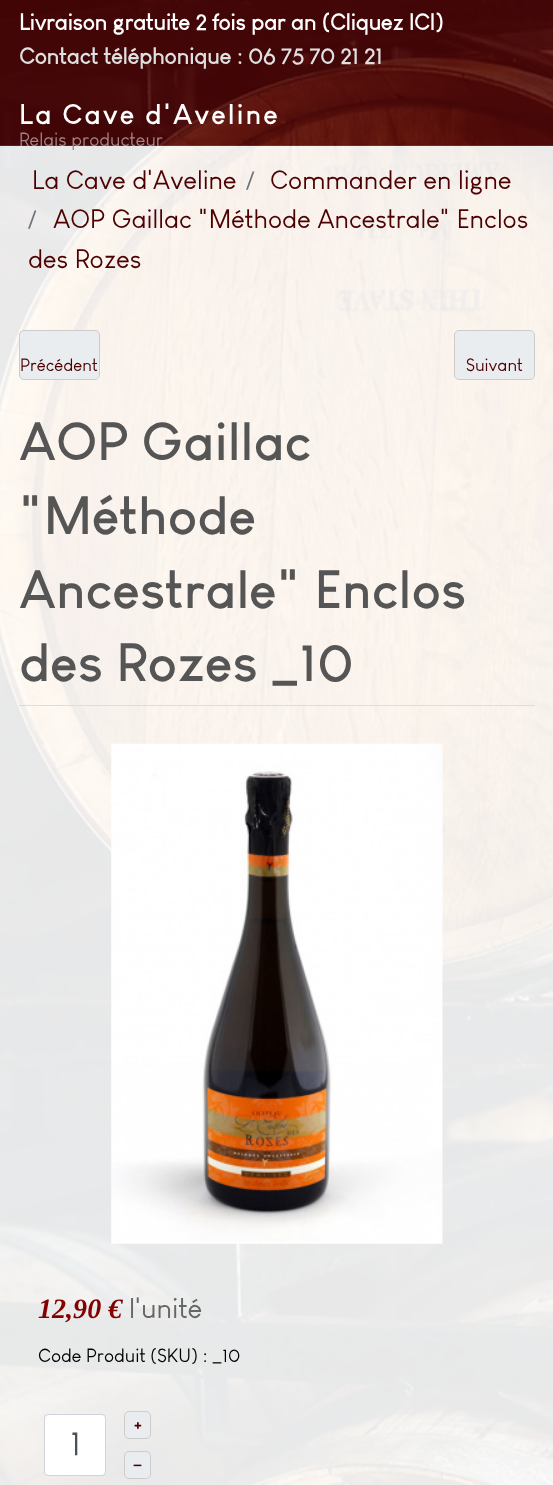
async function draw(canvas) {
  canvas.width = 553
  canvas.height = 1485
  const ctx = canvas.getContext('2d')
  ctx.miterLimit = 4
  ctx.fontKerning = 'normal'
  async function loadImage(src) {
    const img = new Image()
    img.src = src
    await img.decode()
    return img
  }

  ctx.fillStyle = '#fff'
  ctx.fillRect(0, 0, 553, 1485)
  ctx.drawImage(await loadImage('image0.png'), 0, 0, 553, 1485)
  ctx.fillStyle = '#4d0000cc'
  ctx.fillRect(0, 0, 553, 80)
  ctx.font = 'bold 22.5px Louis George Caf'
  ctx.fillStyle = '#fff'
  ctx.fillText('Livraison gratuite 2 fois par an (Cliquez ICI)', 19, 30)
  ctx.fillStyle = '#dfdfdf'
  ctx.fillText('Contact téléphonique : 06 75 70 21 21', 19, 64)
  ctx.fillStyle = '#4d0000cc'
  ctx.fillRect(0, 80, 553, 66)
  ctx.fillStyle = '#ffffff1a'
  ctx.fillRect(0, 145, 553, 1)
  ctx.letterSpacing = '1.9px'
  ctx.font = 'bold 28.1px "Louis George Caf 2"'
  ctx.fillStyle = '#fff'
  ctx.fillText('La Cave d\'Aveline', 19, 124)
  ctx.fillStyle = '#ffffffe6'
  ctx.fillRect(0, 146, 553, 147)
  ctx.letterSpacing = '0px'
  ctx.font = '18.75px Louis George Caf'
  ctx.fillStyle = '#a38687'
  ctx.fillText('Relais producteur', 19, 146)
  ctx.font = '26.25px Louis George Caf'
  ctx.fillStyle = '#4d0000'
  ctx.fillText('La Cave d\'Aveline', 32, 189)
  ctx.fillStyle = '#6c757d'
  ctx.fillText('/', 246, 189)
  ctx.fillStyle = '#4d0000'
  ctx.fillText('Commander en ligne', 270, 189)
  ctx.fillStyle = '#6c757d'
  ctx.fillText('/', 28, 228)
  ctx.fillStyle = '#4d0000'
  ctx.fillText('AOP Gaillac "Méthode Ancestrale" Enclos', 53, 228)
  ctx.fillText('des Rozes', 28, 268)
  ctx.fillStyle = '#ffffffe6'
  ctx.fillRect(0, 293, 553, 1192)
  ctx.fillStyle = '#eaedf0'
  ctx.beginPath()
  ctx.roundRect(19.5, 330.5, 80, 49, 4.5)
  ctx.fill()
  ctx.strokeStyle = '#ccc'
  ctx.stroke()
  ctx.font = '17.5px Louis George Caf'
  ctx.fillStyle = '#4d0000'
  ctx.fillText('Précédent', 20, 371)
  ctx.fillStyle = '#eaedf0'
  ctx.beginPath()
  ctx.roundRect(454.5, 330.5, 80, 49, 4.5)
  ctx.fill()
  ctx.stroke()
  ctx.fillStyle = '#4d0000'
  ctx.fillText('Suivant', 466, 371)
  ctx.fillStyle = '#ddd'
  ctx.fillRect(19, 705, 516, 1)
  ctx.font = 'bold 52.75px "Louis George Caf 2"'
  ctx.fillStyle = '#555'
  ctx.fillText('AOP Gaillac', 19, 460)
  ctx.fillText('"Méthode', 19, 534)
  ctx.fillText('Ancestrale" Enclos', 19, 608)
  ctx.fillText('des Rozes _10', 19, 681)
  ctx.drawImage(await loadImage('image1.png'), 111, 743, 332, 501)
  ctx.font = 'italic bold 28.1px Liberation Serif'
  ctx.fillStyle = '#840000'
  ctx.fillText('12,90 €', 38, 1318)
  ctx.font = '28.1px Louis George Caf'
  ctx.fillStyle = '#666'
  ctx.fillText('l\'unité', 129, 1318)
  ctx.font = '18.75px Louis George Caf'
  ctx.fillStyle = '#000'
  ctx.fillText('Code Produit (SKU) : _10', 38, 1362)
  ctx.fillStyle = '#fff'
  ctx.beginPath()
  ctx.roundRect(45, 1415, 60, 60, 2.5)
  ctx.fill()
  ctx.beginPath()
  ctx.roundRect(44.5, 1414.5, 61, 61, 3.5)
  ctx.strokeStyle = '#ced4da'
  ctx.stroke()
  ctx.font = '34px Louis George Caf'
  ctx.fillStyle = '#495057'
  ctx.fillText('1', 70, 1455)
  ctx.fillStyle = '#eaedf0'
  ctx.beginPath()
  ctx.roundRect(124.5, 1411.5, 26, 27, 4.5)
  ctx.fill()
  ctx.strokeStyle = '#ccc'
  ctx.stroke()
  ctx.font = 'bold 17.5px Louis George Caf'
  ctx.fillStyle = '#4d0000'
  ctx.fillText('+', 134, 1430)
  ctx.fillStyle = '#eaedf0'
  ctx.beginPath()
  ctx.roundRect(124.5, 1451.5, 26, 27, 4.5)
  ctx.fill()
  ctx.stroke()
  ctx.fillStyle = '#4d0000'
  ctx.fillText('–', 133, 1470)
}

draw(document.querySelector('canvas'))
